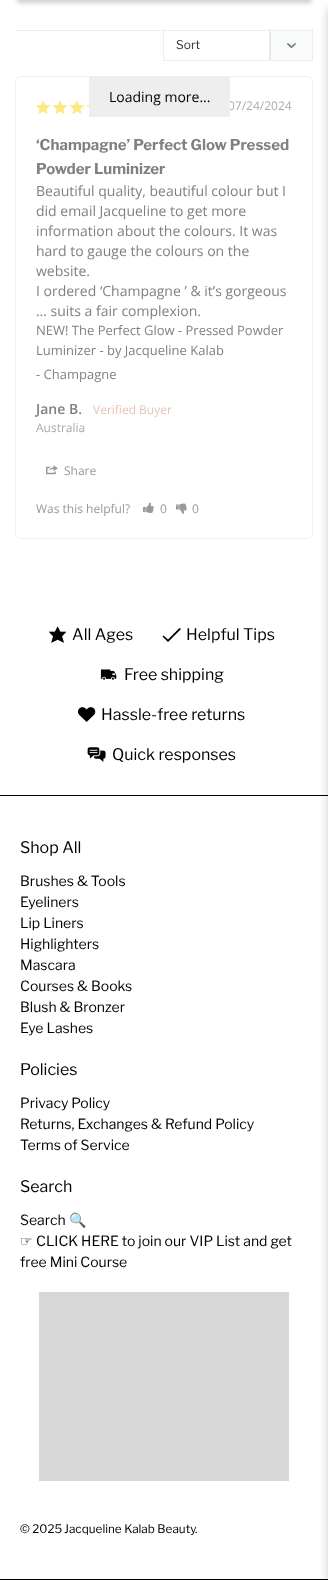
async function draw(canvas) {
  canvas.width = 328
  canvas.height = 1580
  const ctx = canvas.getContext('2d')
  ctx.miterLimit = 4
  ctx.fontKerning = 'normal'
  async function loadImage(src) {
    const img = new Image()
    img.src = src
    await img.decode()
    return img
  }

  ctx.fillStyle = '#fff'
  ctx.fillRect(0, 0, 328, 1580)
  ctx.fillStyle = '#000'
  ctx.fillRect(0, 795, 328, 1)
  ctx.fillRect(0, 1579, 328, 1)
  ctx.fillStyle = '#0a0a0a1a'
  ctx.filter = 'blur(4px)'
  ctx.beginPath()
  ctx.rect(328, 8, 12, 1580)
  ctx.fill()
  ctx.filter = 'none'
  ctx.fillStyle = '#8888886b'
  ctx.filter = 'blur(2.5px)'
  ctx.beginPath()
  ctx.roundRect(17, -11, 295, 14, 3)
  ctx.fill()
  ctx.filter = 'none'
  ctx.fillStyle = '#f9fbfb'
  ctx.fillRect(270, 29, 42, 31)
  ctx.save()
  ctx.beginPath()
  ctx.rect(269, 29, 44, 32)
  ctx.clip()
  ctx.beginPath()
  ctx.moveTo(270, 70)
  ctx.lineTo(270, 20)
  ctx.strokeStyle = '#ccd6e0'
  ctx.lineCap = 'square'
  ctx.stroke()
  ctx.restore()
  ctx.fillStyle = '#eee'
  ctx.fillRect(312, 29, 1, 32)
  ctx.fillRect(163, 60, 150, 1)
  ctx.fillRect(163, 29, 1, 32)
  ctx.fillRect(15, 30, 298, 1)
  ctx.fillStyle = '#757d8b'
  ctx.beginPath()
  ctx.moveTo(295, 43)
  ctx.lineTo(295.5, 43)
  ctx.bezierCurveTo(297, 43.5, 294.5, 45.5, 294.5, 45.5)
  ctx.bezierCurveTo(294, 46, 292, 48.5, 291, 48)
  ctx.lineTo(289, 46)
  ctx.bezierCurveTo(289, 46, 286, 43.5, 287.5, 43)
  ctx.bezierCurveTo(288.5, 42.5, 291, 45.5, 291.5, 46)
  ctx.closePath()
  ctx.fill()
  ctx.font = '12px Libre Franklin'
  ctx.fillStyle = '#333'
  ctx.fillText('Sort', 176, 49)
  ctx.beginPath()
  ctx.roundRect(15.5, 76.5, 297, 462, 4.5)
  ctx.strokeStyle = '#f0f0f0'
  ctx.stroke()
  ctx.font = '12px Open Sans'
  ctx.fillStyle = '#aaa'
  ctx.fillText('07/24/2024', 228, 110)
  ctx.fillStyle = '#eee'
  ctx.fillRect(89, 77, 141, 40)
  ctx.font = '14px Open Sans'
  ctx.fillStyle = '#000'
  ctx.fillText('Loading more...', 109, 102)
  ctx.drawImage(await loadImage('image0.png'), 35, 100, 16, 14)
  ctx.drawImage(await loadImage('image0.png'), 52, 100, 16, 14)
  ctx.drawImage(await loadImage('image0.png'), 69, 100, 16, 14)
  ctx.drawImage(await loadImage('image1.png'), 86, 105, 3, 3)
  ctx.font = 'bold 15px Libre Franklin'
  ctx.fillStyle = '#808080'
  ctx.fillText('‘Champagne’ Perfect Glow Pressed', 36, 150)
  ctx.fillText('Powder Luminizer', 36, 174)
  ctx.font = '14px Open Sans'
  ctx.fillText('Beautiful quality, beautiful colour but I', 36, 196)
  ctx.fillText('did email Jacqueline to get more', 36, 216)
  ctx.fillText('information about the colours. It was', 36, 236)
  ctx.fillText('hard to gauge the colours on the', 36, 256)
  ctx.fillText('website.', 36, 276)
  ctx.fillText('I ordered ‘Champagne ’ & it’s gorgeous', 36, 296)
  ctx.fillText('… suits a fair complexion.', 36, 316)
  ctx.font = '13px Open Sans'
  ctx.fillText('NEW! The Perfect Glow - Pressed Powder', 36, 335)
  ctx.fillText('Luminizer - by Jacqueline Kalab', 36, 355)
  ctx.fillText('- Champagne', 36, 379)
  ctx.font = '600 14px Open Sans'
  ctx.fillText('Jane B.', 36, 414)
  ctx.font = '12px Open Sans'
  ctx.fillStyle = '#e4c5b5'
  ctx.fillText('Verified Buyer', 93, 414)
  ctx.fillStyle = '#aaa'
  ctx.fillText('Australia', 36, 432)
  ctx.drawImage(await loadImage('image2.png'), 46, 465, 12, 10)
  ctx.fillStyle = '#999'
  ctx.fillText('Share', 64, 475)
  ctx.fillText('Was this helpful?', 36, 513)
  ctx.drawImage(await loadImage('image3.png'), 143, 502, 11, 11)
  ctx.fillText('0', 160, 513)
  ctx.drawImage(await loadImage('image4.png'), 176, 503, 11, 11)
  ctx.fillText('0', 192, 513)
  ctx.drawImage(await loadImage('image5.png'), 49, 626, 18, 17)
  ctx.font = '16px Libre Franklin'
  ctx.fillStyle = '#000'
  ctx.fillText('All Ages', 72, 640)
  ctx.beginPath()
  ctx.moveTo(179.5, 628)
  ctx.lineTo(168, 639.5)
  ctx.lineTo(163.5, 635.5)
  ctx.lineTo(162.5, 636.5)
  ctx.lineTo(168, 642)
  ctx.lineTo(181, 629)
  ctx.closePath()
  ctx.fill()
  ctx.fillText('Helpful Tips', 186, 640)
  ctx.drawImage(await loadImage('image6.png'), 100, 669, 17, 11)
  ctx.fillText('Free shipping', 124, 680)
  ctx.drawImage(await loadImage('image7.png'), 78, 707, 18, 15)
  ctx.fillText('Hassle-free returns', 101, 720)
  ctx.drawImage(await loadImage('image8.png'), 87, 747, 19, 15)
  ctx.fillText('Quick responses', 112, 760)
  ctx.fillText('Shop All', 20, 853)
  ctx.font = '14px Libre Franklin'
  ctx.fillText('Brushes & Tools', 20, 886)
  ctx.fillText('Eyeliners', 20, 907)
  ctx.fillText('Lip Liners', 20, 928)
  ctx.fillText('Highlighters', 20, 949)
  ctx.fillText('Mascara', 20, 970)
  ctx.fillText('Courses & Books', 20, 991)
  ctx.fillText('Blush & Bronzer', 20, 1012)
  ctx.fillText('Eye Lashes', 20, 1033)
  ctx.font = '16px Libre Franklin'
  ctx.fillText('Policies', 20, 1075)
  ctx.font = '14px Libre Franklin'
  ctx.fillText('Privacy Policy', 20, 1108)
  ctx.fillText('Returns, Exchanges & Refund Policy', 20, 1129)
  ctx.fillText('Terms of Service', 20, 1150)
  ctx.font = '16px Libre Franklin'
  ctx.fillText('Search', 20, 1192)
  ctx.font = '14px Libre Franklin'
  ctx.fillText('Search', 20, 1225)
  ctx.font = '14px Noto Color Emoji'
  ctx.fillText('🔍', 69, 1225)
  ctx.font = '14px DejaVu Sans'
  ctx.fillText('☞', 20, 1246)
  ctx.font = '14px Libre Franklin'
  ctx.fillText('CLICK HERE to join our VIP List and get', 36, 1246)
  ctx.fillText('free Mini Course', 20, 1267)
  ctx.fillStyle = '#d7d7d7'
  ctx.fillRect(39, 1292, 250, 189)
  ctx.font = '11.75px Libre Franklin'
  ctx.fillStyle = '#000'
  ctx.fillText('© 2025', 20, 1533)
  ctx.fillText('Jacqueline Kalab Beauty', 64, 1533)
  ctx.fillText('.', 195, 1533)
  ctx.fillStyle = '#0a0a0a1a'
  ctx.filter = 'blur(4px)'
  ctx.beginPath()
  ctx.rect(328, 8, 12, 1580)
  ctx.fill()
  ctx.filter = 'none'
}

draw(document.querySelector('canvas'))
